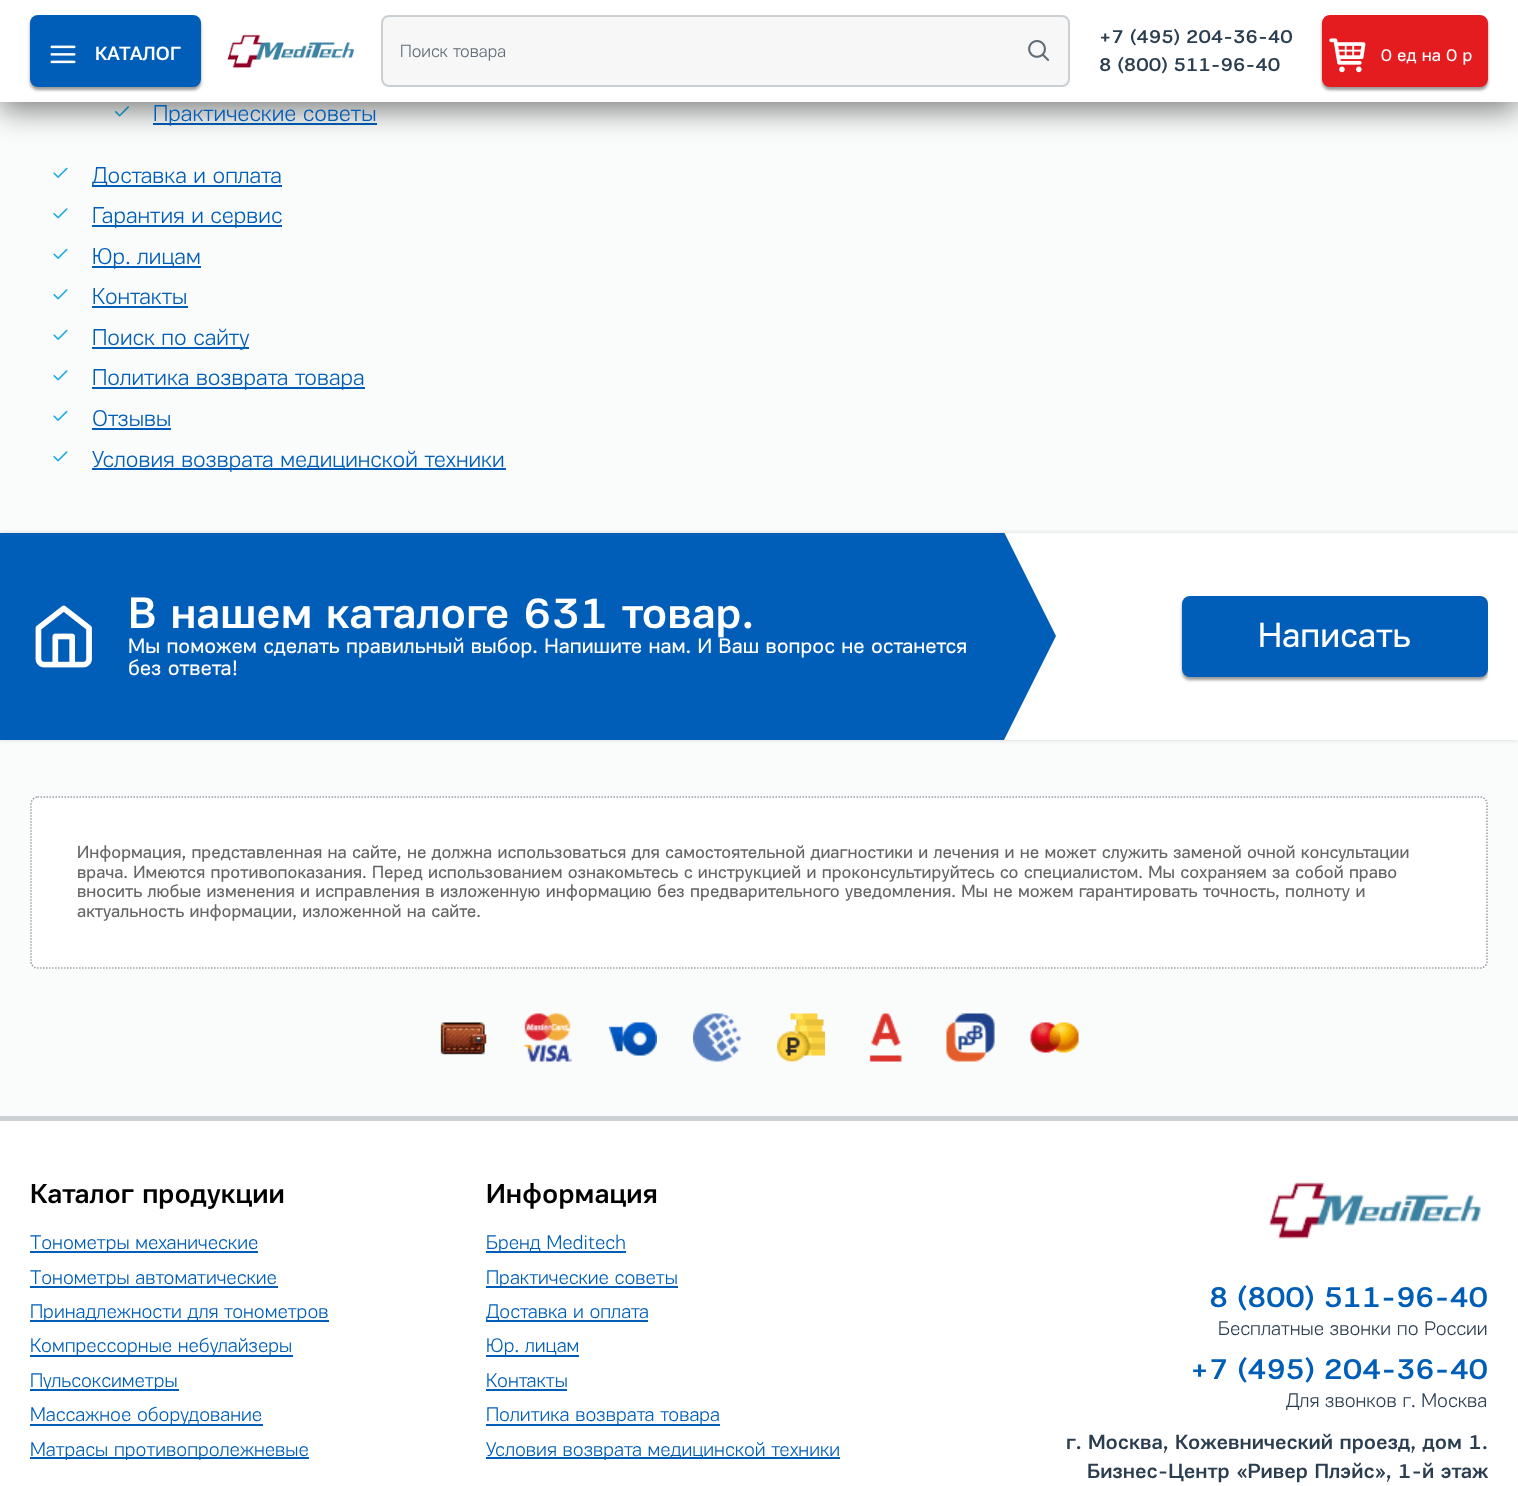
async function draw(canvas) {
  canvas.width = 1518
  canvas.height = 1486
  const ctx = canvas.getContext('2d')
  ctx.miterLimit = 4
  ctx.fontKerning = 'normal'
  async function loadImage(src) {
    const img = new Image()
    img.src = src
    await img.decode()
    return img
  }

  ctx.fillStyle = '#fafbfb'
  ctx.fillRect(0, 0, 1518, 1486)
  ctx.drawImage(await loadImage('image4.png'), 114, 106, 15, 11)
  ctx.fillStyle = '#005eb8'
  ctx.fillRect(153, 123, 224, 2)
  ctx.fillStyle = '#00000080'
  ctx.filter = 'blur(15px)'
  ctx.beginPath()
  ctx.rect(0, 8, 1518, 102)
  ctx.fill()
  ctx.filter = 'none'
  ctx.fillStyle = '#fff'
  ctx.fillRect(0, 0, 1518, 102)
  ctx.fillStyle = '#00000066'
  ctx.filter = 'blur(1.5px)'
  ctx.beginPath()
  ctx.roundRect(30, 18, 171, 72, 8)
  ctx.fill()
  ctx.filter = 'none'
  ctx.fillStyle = '#005eb8'
  ctx.beginPath()
  ctx.roundRect(30, 15, 171, 72, 8)
  ctx.fill()
  ctx.drawImage(await loadImage('image0.png'), 50, 45, 26, 19)
  ctx.font = '500 19.75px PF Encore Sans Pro'
  ctx.fillStyle = '#fff'
  ctx.fillText('КАТАЛОГ', 95, 60)
  ctx.drawImage(await loadImage('image1.png'), 227, 34, 127, 35)
  ctx.fillStyle = '#f7f7f7'
  ctx.beginPath()
  ctx.roundRect(382, 16, 687, 70, 7)
  ctx.fill()
  ctx.strokeStyle = '#cacfd3'
  ctx.lineWidth = 2
  ctx.stroke()
  ctx.font = '300 18px PF Encore Sans Pro'
  ctx.fillStyle = '#606c77'
  ctx.fillText('Поиск товара', 400, 57)
  ctx.drawImage(await loadImage('image2.png'), 1028, 40, 22, 21)
  ctx.font = '500 19.75px PF Encore Sans Pro'
  ctx.fillStyle = '#2b3e50'
  ctx.fillText('+7 (495) 204-36-40', 1099, 43)
  ctx.fillText('8 (800) 511-96-40', 1099, 71)
  ctx.fillStyle = '#00000066'
  ctx.filter = 'blur(1.5px)'
  ctx.beginPath()
  ctx.roundRect(1322, 18, 166, 72, 8)
  ctx.fill()
  ctx.filter = 'none'
  ctx.fillStyle = '#e41c20'
  ctx.beginPath()
  ctx.roundRect(1323.5, 16.5, 163, 69, 6.5)
  ctx.fill()
  ctx.strokeStyle = '#e41c20'
  ctx.lineWidth = 3
  ctx.stroke()
  ctx.drawImage(await loadImage('image3.png'), 1329, 38, 37, 35)
  ctx.font = '18px PF Encore Sans Pro'
  ctx.fillStyle = '#fff'
  ctx.fillText('0 ед на 0 p', 1381, 61)
  ctx.font = '300 23.6px PF Encore Sans Pro'
  ctx.fillStyle = '#005eb8'
  ctx.fillText('Практические советы', 153, 121)
  ctx.drawImage(await loadImage('image5.png'), 53, 167, 15, 11)
  ctx.fillRect(92, 185, 190, 2)
  ctx.fillText('Доставка и оплата', 92, 183)
  ctx.drawImage(await loadImage('image6.png'), 53, 208, 15, 11)
  ctx.fillRect(92, 225, 190, 2)
  ctx.fillText('Гарантия и сервис', 92, 223)
  ctx.drawImage(await loadImage('image5.png'), 53, 248, 15, 11)
  ctx.fillRect(92, 266, 109, 2)
  ctx.fillText('Юр. лицам', 92, 264)
  ctx.drawImage(await loadImage('image6.png'), 53, 289, 15, 11)
  ctx.fillText('Контакты', 92, 304)
  ctx.fillRect(92, 306, 96, 2)
  ctx.drawImage(await loadImage('image5.png'), 53, 329, 15, 11)
  ctx.fillRect(92, 347, 157, 2)
  ctx.fillText('Поиск по сайту', 92, 345)
  ctx.drawImage(await loadImage('image6.png'), 53, 370, 15, 11)
  ctx.fillRect(92, 387, 273, 2)
  ctx.fillText('Политика возврата товара', 92, 385)
  ctx.drawImage(await loadImage('image5.png'), 53, 410, 15, 11)
  ctx.fillText('Отзывы', 92, 426)
  ctx.fillRect(92, 428, 79, 2)
  ctx.drawImage(await loadImage('image6.png'), 53, 451, 15, 11)
  ctx.fillRect(92, 468, 414, 2)
  ctx.fillText('Условия возврата медицинской техники', 92, 467)
  ctx.fillStyle = '#00000026'
  ctx.filter = 'blur(2px)'
  ctx.beginPath()
  ctx.rect(0, 533, 1518, 207)
  ctx.fill()
  ctx.filter = 'none'
  ctx.fillStyle = '#005eb8'
  ctx.fillRect(0, 533, 1056, 207)
  ctx.fillStyle = '#fff'
  ctx.fillRect(1056, 533, 462, 207)
  ctx.drawImage(await loadImage('image7.png'), 35, 605, 57, 63)
  ctx.font = '500 45px PF Encore Sans Pro'
  ctx.fillText('В нашем каталоге 631 товар.', 128, 628)
  ctx.font = '21.6px PF Encore Sans Pro'
  ctx.fillText('Мы поможем сделать правильный выбор. Напишите нам. И Ваш вопрос не останется', 128, 653)
  ctx.fillText('без ответа!', 128, 675)
  ctx.save()
  ctx.beginPath()
  ctx.rect(30, 533, 1458, 207)
  ctx.clip()
  ctx.beginPath()
  ctx.moveTo(981, 486)
  ctx.lineTo(1131, 486)
  ctx.lineTo(1056, 636)
  ctx.closePath()
  ctx.fill()
  ctx.beginPath()
  ctx.moveTo(1131, 786)
  ctx.lineTo(981, 786)
  ctx.lineTo(1056, 636)
  ctx.closePath()
  ctx.fill()
  ctx.restore()
  ctx.save()
  ctx.beginPath()
  ctx.rect(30, 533, 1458, 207)
  ctx.clip()
  ctx.fillStyle = '#00000066'
  ctx.filter = 'blur(1.5px)'
  ctx.beginPath()
  ctx.roundRect(1182, 599, 306, 81, 8)
  ctx.fill()
  ctx.filter = 'none'
  ctx.restore()
  ctx.fillStyle = '#005eb8'
  ctx.beginPath()
  ctx.roundRect(1182, 596, 306, 81, 8)
  ctx.fill()
  ctx.font = '36px PF Encore Sans Pro'
  ctx.fillStyle = '#fff'
  ctx.fillText('Написать', 1258, 647)
  ctx.beginPath()
  ctx.roundRect(30, 797, 1458, 172, 8)
  ctx.fill()
  ctx.beginPath()
  ctx.moveTo(37.5, 797)
  ctx.lineTo(1480.5, 797)
  ctx.bezierCurveTo(1484, 797, 1487, 800.5, 1487, 804)
  ctx.lineTo(1487, 961.5)
  ctx.bezierCurveTo(1487, 965, 1484, 968, 1480.5, 968)
  ctx.lineTo(37.5, 968)
  ctx.bezierCurveTo(34, 968, 31, 965, 31, 961.5)
  ctx.lineTo(31, 804)
  ctx.bezierCurveTo(31, 800.5, 34, 797, 37.5, 797)
  ctx.closePath()
  ctx.strokeStyle = '#969fa8'
  ctx.lineWidth = 1.5
  ctx.setLineDash([1.5, 1.5])
  ctx.stroke()
  ctx.font = '18px PF Encore Sans Pro'
  ctx.fillStyle = '#666'
  ctx.fillText('Информация, представленная на сайте, не должна использоваться для самостоятельной диагностики и лечения и не может служить заменой очной консультации', 77, 858)
  ctx.fillText('врача. Имеются противопоказания. Перед использованием ознакомьтесь с инструкцией и проконсультируйтесь со специалистом. Мы сохраняем за собой право', 77, 878)
  ctx.fillText('вносить любые изменения и исправления в изложенную информацию без предварительного уведомления. Мы не можем гарантировать точность, полноту и', 77, 897)
  ctx.fillText('актуальность информации, изложенной на сайте.', 77, 917)
  ctx.drawImage(await loadImage('image8.png'), 440, 1022, 47, 33)
  ctx.drawImage(await loadImage('image9.png'), 523, 1013, 49, 49)
  ctx.drawImage(await loadImage('image10.png'), 609, 1021, 48, 35)
  ctx.drawImage(await loadImage('image11.png'), 693, 1013, 48, 49)
  ctx.drawImage(await loadImage('image12.png'), 777, 1013, 48, 49)
  ctx.drawImage(await loadImage('image13.png'), 869, 1013, 33, 49)
  ctx.drawImage(await loadImage('image14.png'), 946, 1013, 49, 49)
  ctx.drawImage(await loadImage('image15.png'), 1030, 1022, 49, 31)
  ctx.fillStyle = '#fff'
  ctx.fillRect(0, 1121, 1518, 365)
  ctx.fillStyle = '#cacfd3'
  ctx.fillRect(0, 1116, 1518, 5)
  ctx.font = '500 28.25px PF Encore Sans Pro'
  ctx.fillStyle = '#000'
  ctx.fillText('Каталог продукции', 30, 1203)
  ctx.fillStyle = '#005eb8'
  ctx.fillRect(30, 1251, 228, 2)
  ctx.font = '300 20.25px PF Encore Sans Pro'
  ctx.fillText('Тонометры механические', 30, 1249)
  ctx.fillRect(30, 1286, 248, 2)
  ctx.fillText('Тонометры автоматические', 30, 1284)
  ctx.fillRect(30, 1320, 299, 2)
  ctx.fillText('Принадлежности для тонометров', 30, 1318)
  ctx.fillRect(30, 1355, 263, 2)
  ctx.fillText('Компрессорные небулайзеры', 30, 1352)
  ctx.fillRect(30, 1389, 149, 2)
  ctx.fillText('Пульсоксиметры', 30, 1387)
  ctx.fillRect(30, 1424, 233, 2)
  ctx.fillText('Массажное оборудование', 30, 1421)
  ctx.fillRect(30, 1457, 279, 2)
  ctx.fillText('Матрасы противопролежневые', 30, 1456)
  ctx.font = '500 28.25px PF Encore Sans Pro'
  ctx.fillStyle = '#000'
  ctx.fillText('Информация', 486, 1203)
  ctx.fillStyle = '#005eb8'
  ctx.fillRect(486, 1251, 140, 2)
  ctx.font = '300 20.25px PF Encore Sans Pro'
  ctx.fillText('Бренд Мeditech', 486, 1249)
  ctx.fillRect(486, 1286, 192, 2)
  ctx.fillText('Практические советы', 486, 1284)
  ctx.fillRect(486, 1320, 162, 2)
  ctx.fillText('Доставка и оплата', 486, 1318)
  ctx.fillRect(486, 1355, 93, 2)
  ctx.fillText('Юр. лицам', 486, 1352)
  ctx.fillText('Контакты', 486, 1387)
  ctx.fillRect(486, 1389, 81, 2)
  ctx.fillRect(486, 1424, 234, 2)
  ctx.fillText('Политика возврата товара', 486, 1421)
  ctx.fillRect(486, 1457, 354, 2)
  ctx.fillText('Условия возврата медицинской техники', 486, 1456)
  ctx.drawImage(await loadImage('image16.png'), 1268, 1182, 213, 57)
  ctx.font = '500 30.4px PF Encore Sans Pro'
  ctx.fillText('8 (800) 511-96-40', 1209, 1307)
  ctx.font = '300 20.25px PF Encore Sans Pro'
  ctx.fillStyle = '#2b3e50'
  ctx.fillText('Бесплатные звонки по России', 1218, 1335)
  ctx.font = '500 30.4px PF Encore Sans Pro'
  ctx.fillStyle = '#005eb8'
  ctx.fillText('+7 (495) 204-36-40', 1190, 1379)
  ctx.font = '300 20.25px PF Encore Sans Pro'
  ctx.fillStyle = '#2b3e50'
  ctx.fillText('Для звонков г. Москва', 1286, 1407)
  ctx.font = '500 21.25px PF Encore Sans Pro'
  ctx.fillText('г. Москва, Кожевнический проезд, дом 1.', 1066, 1449)
  ctx.fillText('Бизнес-Центр «Ривер Плэйс», 1-й этаж', 1087, 1478)
}

draw(document.querySelector('canvas'))
